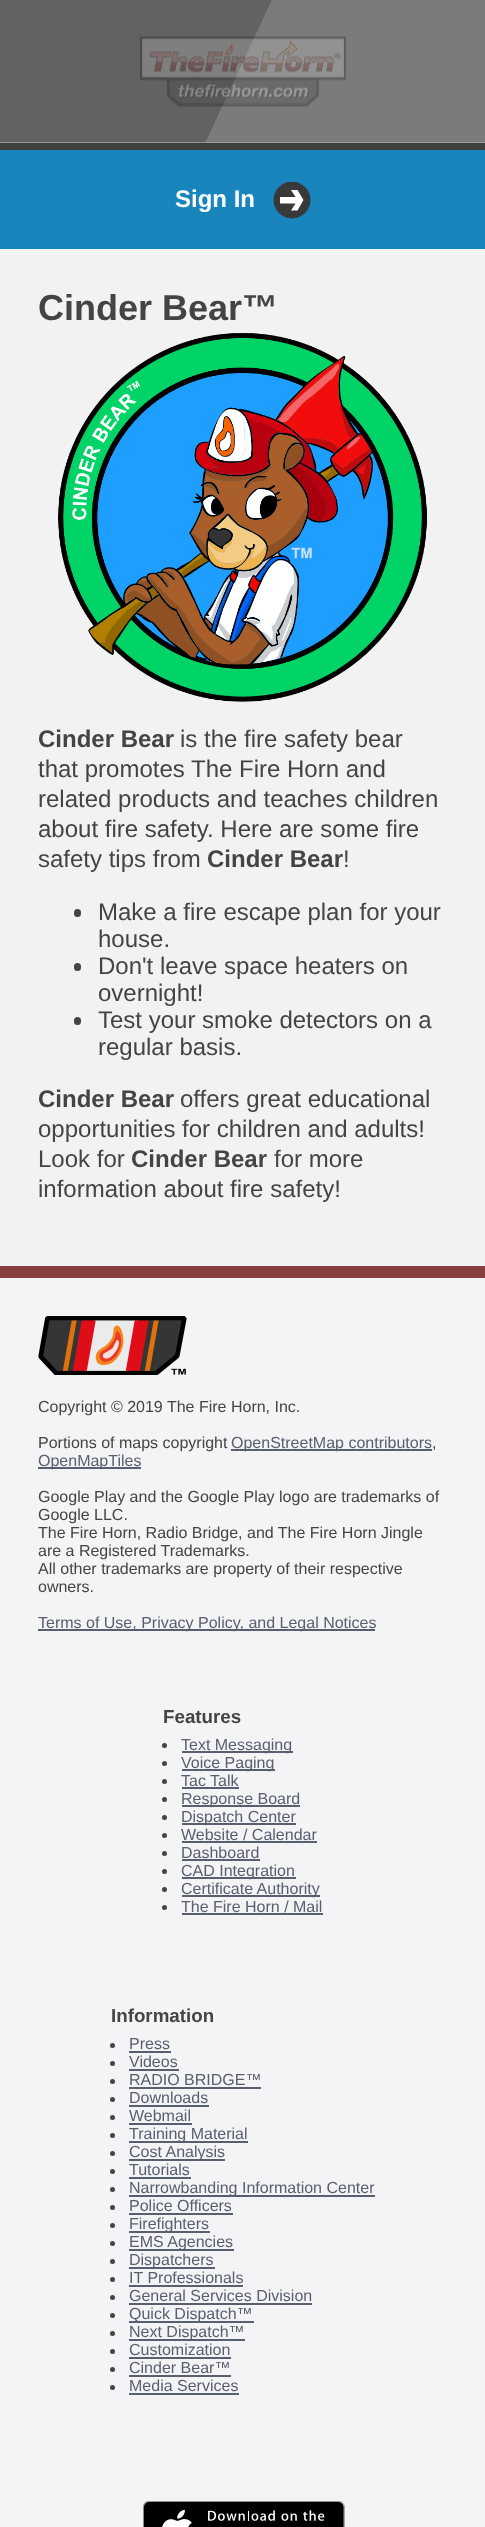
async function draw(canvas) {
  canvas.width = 485
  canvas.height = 2527
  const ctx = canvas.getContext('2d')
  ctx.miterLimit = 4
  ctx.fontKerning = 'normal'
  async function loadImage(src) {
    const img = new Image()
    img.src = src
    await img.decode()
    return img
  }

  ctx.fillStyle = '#f4f3f5'
  ctx.fillRect(0, 0, 485, 2527)
  ctx.fillStyle = '#c0c0c0'
  ctx.fillRect(0, 0, 485, 143)
  ctx.drawImage(await loadImage('image0.png'), 0, 0, 485, 143)
  ctx.fillStyle = '#3f3f3f'
  ctx.fillRect(0, 143, 485, 7)
  ctx.drawImage(await loadImage('image1.png'), 140, 36, 206, 71)
  ctx.fillStyle = '#1886bd'
  ctx.fillRect(0, 150, 485, 99)
  ctx.font = 'bold 24px Liberation Sans'
  ctx.fillStyle = '#fff'
  ctx.fillText('Sign In', 175, 207)
  ctx.save()
  ctx.beginPath()
  ctx.rect(273, 182, 38, 37)
  ctx.clip()
  ctx.fillStyle = '#393939'
  ctx.beginPath()
  ctx.arc(292, 200, 18.5, 0, 2 * Math.PI)
  ctx.fill()
  ctx.restore()
  ctx.beginPath()
  ctx.moveTo(295.5, 197)
  ctx.lineTo(291, 190)
  ctx.lineTo(297.5, 190)
  ctx.lineTo(303.5, 200)
  ctx.lineTo(297.5, 210.5)
  ctx.lineTo(291, 210.5)
  ctx.lineTo(295.5, 203.5)
  ctx.lineTo(280, 203.5)
  ctx.lineTo(280, 197)
  ctx.closePath()
  ctx.fill('evenodd')
  ctx.fillStyle = '#f2f2f2'
  ctx.fillRect(0, 249, 485, 1017)
  ctx.font = 'bold 36px Liberation Sans'
  ctx.fillStyle = '#444'
  ctx.fillText('Cinder Bear™', 38, 320)
  ctx.drawImage(await loadImage('image2.png'), 58, 333, 370, 369)
  ctx.font = 'bold 24px Liberation Sans'
  ctx.fillText('Cinder Bear', 38, 747)
  ctx.font = '24px Liberation Sans'
  ctx.fillText('is the fire safety bear', 180, 747)
  ctx.fillText('that promotes The Fire Horn and', 38, 777)
  ctx.fillText('related products and teaches children', 38, 807)
  ctx.fillText('about fire safety. Here are some fire', 38, 837)
  ctx.fillText('safety tips from', 38, 867)
  ctx.font = 'bold 24px Liberation Sans'
  ctx.fillText('Cinder Bear', 207, 867)
  ctx.font = '24px Liberation Sans'
  ctx.fillText('!', 343, 867)
  ctx.beginPath()
  ctx.roundRect(74, 909, 7, 8, 3.5)
  ctx.fill()
  ctx.fillText('Make a fire escape plan for your', 98, 920)
  ctx.fillText('house.', 98, 947)
  ctx.beginPath()
  ctx.roundRect(74, 963, 7, 8, 3.5)
  ctx.fill()
  ctx.fillText('Don\'t leave space heaters on', 98, 974)
  ctx.fillText('overnight!', 98, 1001)
  ctx.beginPath()
  ctx.roundRect(74, 1017, 7, 8, 3.5)
  ctx.fill()
  ctx.fillText('Test your smoke detectors on a', 98, 1028)
  ctx.fillText('regular basis.', 98, 1055)
  ctx.font = 'bold 24px Liberation Sans'
  ctx.fillText('Cinder Bear', 38, 1107)
  ctx.font = '24px Liberation Sans'
  ctx.fillText('offers great educational', 180, 1107)
  ctx.fillText('opportunities for children and adults!', 38, 1137)
  ctx.fillText('Look for', 38, 1167)
  ctx.font = 'bold 24px Liberation Sans'
  ctx.fillText('Cinder Bear', 131, 1167)
  ctx.font = '24px Liberation Sans'
  ctx.fillText('for more', 274, 1167)
  ctx.fillText('information about fire safety!', 38, 1197)
  ctx.fillStyle = '#873e41'
  ctx.fillRect(0, 1266, 485, 12)
  ctx.drawImage(await loadImage('image3.png'), 38, 1316, 149, 59)
  ctx.font = '16px Liberation Sans'
  ctx.fillStyle = '#444'
  ctx.fillText('Copyright © 2019 The Fire Horn, Inc.', 38, 1412)
  ctx.fillText('Portions of maps copyright', 38, 1448)
  ctx.fillStyle = '#575f70'
  ctx.fillRect(231, 1449, 201, 2)
  ctx.fillText('OpenStreetMap contributors', 231, 1448)
  ctx.fillStyle = '#444'
  ctx.fillText(',', 432, 1448)
  ctx.fillStyle = '#575f70'
  ctx.fillRect(38, 1467, 103, 2)
  ctx.fillText('OpenMapTiles', 38, 1466)
  ctx.fillStyle = '#444'
  ctx.fillText('Google Play and the Google Play logo are trademarks of', 38, 1502)
  ctx.fillText('Google LLC.', 38, 1520)
  ctx.fillText('The Fire Horn, Radio Bridge, and The Fire Horn Jingle', 38, 1538)
  ctx.fillText('are a Registered Trademarks.', 38, 1556)
  ctx.fillText('All other trademarks are property of their respective', 38, 1574)
  ctx.fillText('owners.', 38, 1592)
  ctx.fillStyle = '#575f70'
  ctx.fillRect(38, 1629, 337, 2)
  ctx.fillText('Terms of Use, Privacy Policy, and Legal Notices', 38, 1628)
  ctx.font = 'bold 18.75px Liberation Sans'
  ctx.fillStyle = '#444'
  ctx.fillText('Features', 163, 1723)
  ctx.beginPath()
  ctx.arc(164.5, 1745.5, 2.5, 0, 2 * Math.PI)
  ctx.fill()
  ctx.fillStyle = '#575f70'
  ctx.fillRect(182, 1751, 111, 2)
  ctx.font = '16px Liberation Sans'
  ctx.fillText('Text Messaging', 181, 1750)
  ctx.fillStyle = '#444'
  ctx.beginPath()
  ctx.arc(164.5, 1763.5, 2.5, 0, 2 * Math.PI)
  ctx.fill()
  ctx.fillStyle = '#575f70'
  ctx.fillRect(182, 1769, 93, 2)
  ctx.fillText('Voice Paging', 181, 1768)
  ctx.fillStyle = '#444'
  ctx.beginPath()
  ctx.arc(164.5, 1781.5, 2.5, 0, 2 * Math.PI)
  ctx.fill()
  ctx.fillStyle = '#575f70'
  ctx.fillText('Tac Talk', 181, 1786)
  ctx.fillRect(182, 1787, 57, 2)
  ctx.fillStyle = '#444'
  ctx.beginPath()
  ctx.arc(164.5, 1799.5, 2.5, 0, 2 * Math.PI)
  ctx.fill()
  ctx.fillStyle = '#575f70'
  ctx.fillRect(182, 1805, 118, 2)
  ctx.fillText('Response Board', 181, 1804)
  ctx.fillStyle = '#444'
  ctx.beginPath()
  ctx.arc(164.5, 1817.5, 2.5, 0, 2 * Math.PI)
  ctx.fill()
  ctx.fillStyle = '#575f70'
  ctx.fillRect(182, 1823, 114, 2)
  ctx.fillText('Dispatch Center', 181, 1822)
  ctx.fillStyle = '#444'
  ctx.beginPath()
  ctx.arc(164.5, 1835.5, 2.5, 0, 2 * Math.PI)
  ctx.fill()
  ctx.fillStyle = '#575f70'
  ctx.fillText('Website / Calendar', 181, 1840)
  ctx.fillRect(182, 1841, 135, 2)
  ctx.fillStyle = '#444'
  ctx.beginPath()
  ctx.arc(164.5, 1853.5, 2.5, 0, 2 * Math.PI)
  ctx.fill()
  ctx.fillStyle = '#575f70'
  ctx.fillText('Dashboard', 181, 1858)
  ctx.fillRect(182, 1859, 78, 2)
  ctx.fillStyle = '#444'
  ctx.beginPath()
  ctx.arc(164.5, 1871.5, 2.5, 0, 2 * Math.PI)
  ctx.fill()
  ctx.fillStyle = '#575f70'
  ctx.fillRect(182, 1877, 114, 2)
  ctx.fillText('CAD Integration', 181, 1876)
  ctx.fillStyle = '#444'
  ctx.beginPath()
  ctx.arc(164.5, 1889.5, 2.5, 0, 2 * Math.PI)
  ctx.fill()
  ctx.fillStyle = '#575f70'
  ctx.fillRect(182, 1895, 138, 2)
  ctx.fillText('Certificate Authority', 181, 1894)
  ctx.fillStyle = '#444'
  ctx.beginPath()
  ctx.arc(164.5, 1907.5, 2.5, 0, 2 * Math.PI)
  ctx.fill()
  ctx.fillStyle = '#575f70'
  ctx.fillText('The Fire Horn / Mail', 181, 1912)
  ctx.fillRect(182, 1913, 141, 2)
  ctx.font = 'bold 18.75px Liberation Sans'
  ctx.fillStyle = '#444'
  ctx.fillText('Information', 111, 2022)
  ctx.beginPath()
  ctx.arc(112.5, 2045.5, 2.5, 0, 2 * Math.PI)
  ctx.fill()
  ctx.font = '16px Liberation Sans'
  ctx.fillStyle = '#575f70'
  ctx.fillText('Press', 129, 2049)
  ctx.fillRect(129, 2051, 42, 2)
  ctx.fillStyle = '#444'
  ctx.beginPath()
  ctx.arc(112.5, 2063.5, 2.5, 0, 2 * Math.PI)
  ctx.fill()
  ctx.fillStyle = '#575f70'
  ctx.fillText('Videos', 129, 2067)
  ctx.fillRect(129, 2069, 50, 2)
  ctx.fillStyle = '#444'
  ctx.beginPath()
  ctx.arc(112.5, 2081.5, 2.5, 0, 2 * Math.PI)
  ctx.fill()
  ctx.fillStyle = '#575f70'
  ctx.fillText('RADIO BRIDGE™', 129, 2085)
  ctx.fillRect(129, 2087, 132, 2)
  ctx.fillStyle = '#444'
  ctx.beginPath()
  ctx.arc(112.5, 2099.5, 2.5, 0, 2 * Math.PI)
  ctx.fill()
  ctx.fillStyle = '#575f70'
  ctx.fillText('Downloads', 129, 2103)
  ctx.fillRect(129, 2105, 80, 2)
  ctx.fillStyle = '#444'
  ctx.beginPath()
  ctx.arc(112.5, 2117.5, 2.5, 0, 2 * Math.PI)
  ctx.fill()
  ctx.fillStyle = '#575f70'
  ctx.fillText('Webmail', 129, 2121)
  ctx.fillRect(129, 2123, 63, 2)
  ctx.fillStyle = '#444'
  ctx.beginPath()
  ctx.arc(112.5, 2135.5, 2.5, 0, 2 * Math.PI)
  ctx.fill()
  ctx.fillStyle = '#575f70'
  ctx.fillRect(129, 2141, 119, 2)
  ctx.fillText('Training Material', 129, 2139)
  ctx.fillStyle = '#444'
  ctx.beginPath()
  ctx.arc(112.5, 2153.5, 2.5, 0, 2 * Math.PI)
  ctx.fill()
  ctx.fillStyle = '#575f70'
  ctx.fillRect(129, 2159, 96, 2)
  ctx.fillText('Cost Analysis', 129, 2157)
  ctx.fillStyle = '#444'
  ctx.beginPath()
  ctx.arc(112.5, 2171.5, 2.5, 0, 2 * Math.PI)
  ctx.fill()
  ctx.fillStyle = '#575f70'
  ctx.fillText('Tutorials', 129, 2175)
  ctx.fillRect(129, 2177, 62, 2)
  ctx.fillStyle = '#444'
  ctx.beginPath()
  ctx.arc(112.5, 2189.5, 2.5, 0, 2 * Math.PI)
  ctx.fill()
  ctx.fillStyle = '#575f70'
  ctx.fillRect(129, 2195, 246, 2)
  ctx.fillText('Narrowbanding Information Center', 129, 2193)
  ctx.fillStyle = '#444'
  ctx.beginPath()
  ctx.arc(112.5, 2207.5, 2.5, 0, 2 * Math.PI)
  ctx.fill()
  ctx.fillStyle = '#575f70'
  ctx.fillText('Police Officers', 129, 2211)
  ctx.fillRect(129, 2213, 104, 2)
  ctx.fillStyle = '#444'
  ctx.beginPath()
  ctx.arc(112.5, 2225.5, 2.5, 0, 2 * Math.PI)
  ctx.fill()
  ctx.fillStyle = '#575f70'
  ctx.fillRect(129, 2231, 81, 2)
  ctx.fillText('Firefighters', 129, 2229)
  ctx.fillStyle = '#444'
  ctx.beginPath()
  ctx.arc(112.5, 2243.5, 2.5, 0, 2 * Math.PI)
  ctx.fill()
  ctx.fillStyle = '#575f70'
  ctx.fillRect(129, 2249, 105, 2)
  ctx.fillText('EMS Agencies', 129, 2247)
  ctx.fillStyle = '#444'
  ctx.beginPath()
  ctx.arc(112.5, 2261.5, 2.5, 0, 2 * Math.PI)
  ctx.fill()
  ctx.fillStyle = '#575f70'
  ctx.fillRect(129, 2267, 86, 2)
  ctx.fillText('Dispatchers', 129, 2265)
  ctx.fillStyle = '#444'
  ctx.beginPath()
  ctx.arc(112.5, 2279.5, 2.5, 0, 2 * Math.PI)
  ctx.fill()
  ctx.fillStyle = '#575f70'
  ctx.fillText('IT Professionals', 129, 2283)
  ctx.fillRect(129, 2285, 114, 2)
  ctx.fillStyle = '#444'
  ctx.beginPath()
  ctx.arc(112.5, 2297.5, 2.5, 0, 2 * Math.PI)
  ctx.fill()
  ctx.fillStyle = '#575f70'
  ctx.fillText('General Services Division', 129, 2301)
  ctx.fillRect(129, 2303, 183, 2)
  ctx.fillStyle = '#444'
  ctx.beginPath()
  ctx.arc(112.5, 2315.5, 2.5, 0, 2 * Math.PI)
  ctx.fill()
  ctx.fillStyle = '#575f70'
  ctx.fillRect(129, 2321, 125, 2)
  ctx.fillText('Quick Dispatch™', 129, 2319)
  ctx.fillStyle = '#444'
  ctx.beginPath()
  ctx.arc(112.5, 2333.5, 2.5, 0, 2 * Math.PI)
  ctx.fill()
  ctx.fillStyle = '#575f70'
  ctx.fillRect(129, 2339, 116, 2)
  ctx.fillText('Next Dispatch™', 129, 2337)
  ctx.fillStyle = '#444'
  ctx.beginPath()
  ctx.arc(112.5, 2351.5, 2.5, 0, 2 * Math.PI)
  ctx.fill()
  ctx.fillStyle = '#575f70'
  ctx.fillText('Customization', 129, 2355)
  ctx.fillRect(129, 2357, 102, 2)
  ctx.fillStyle = '#444'
  ctx.beginPath()
  ctx.arc(112.5, 2369.5, 2.5, 0, 2 * Math.PI)
  ctx.fill()
  ctx.fillStyle = '#575f70'
  ctx.fillText('Cinder Bear™', 129, 2373)
  ctx.fillRect(129, 2375, 102, 2)
  ctx.fillStyle = '#444'
  ctx.beginPath()
  ctx.arc(112.5, 2387.5, 2.5, 0, 2 * Math.PI)
  ctx.fill()
  ctx.fillStyle = '#575f70'
  ctx.fillText('Media Services', 129, 2391)
  ctx.fillRect(129, 2393, 110, 2)
  ctx.drawImage(await loadImage('image4.png'), 143, 2501, 202, 26)
}

draw(document.querySelector('canvas'))
